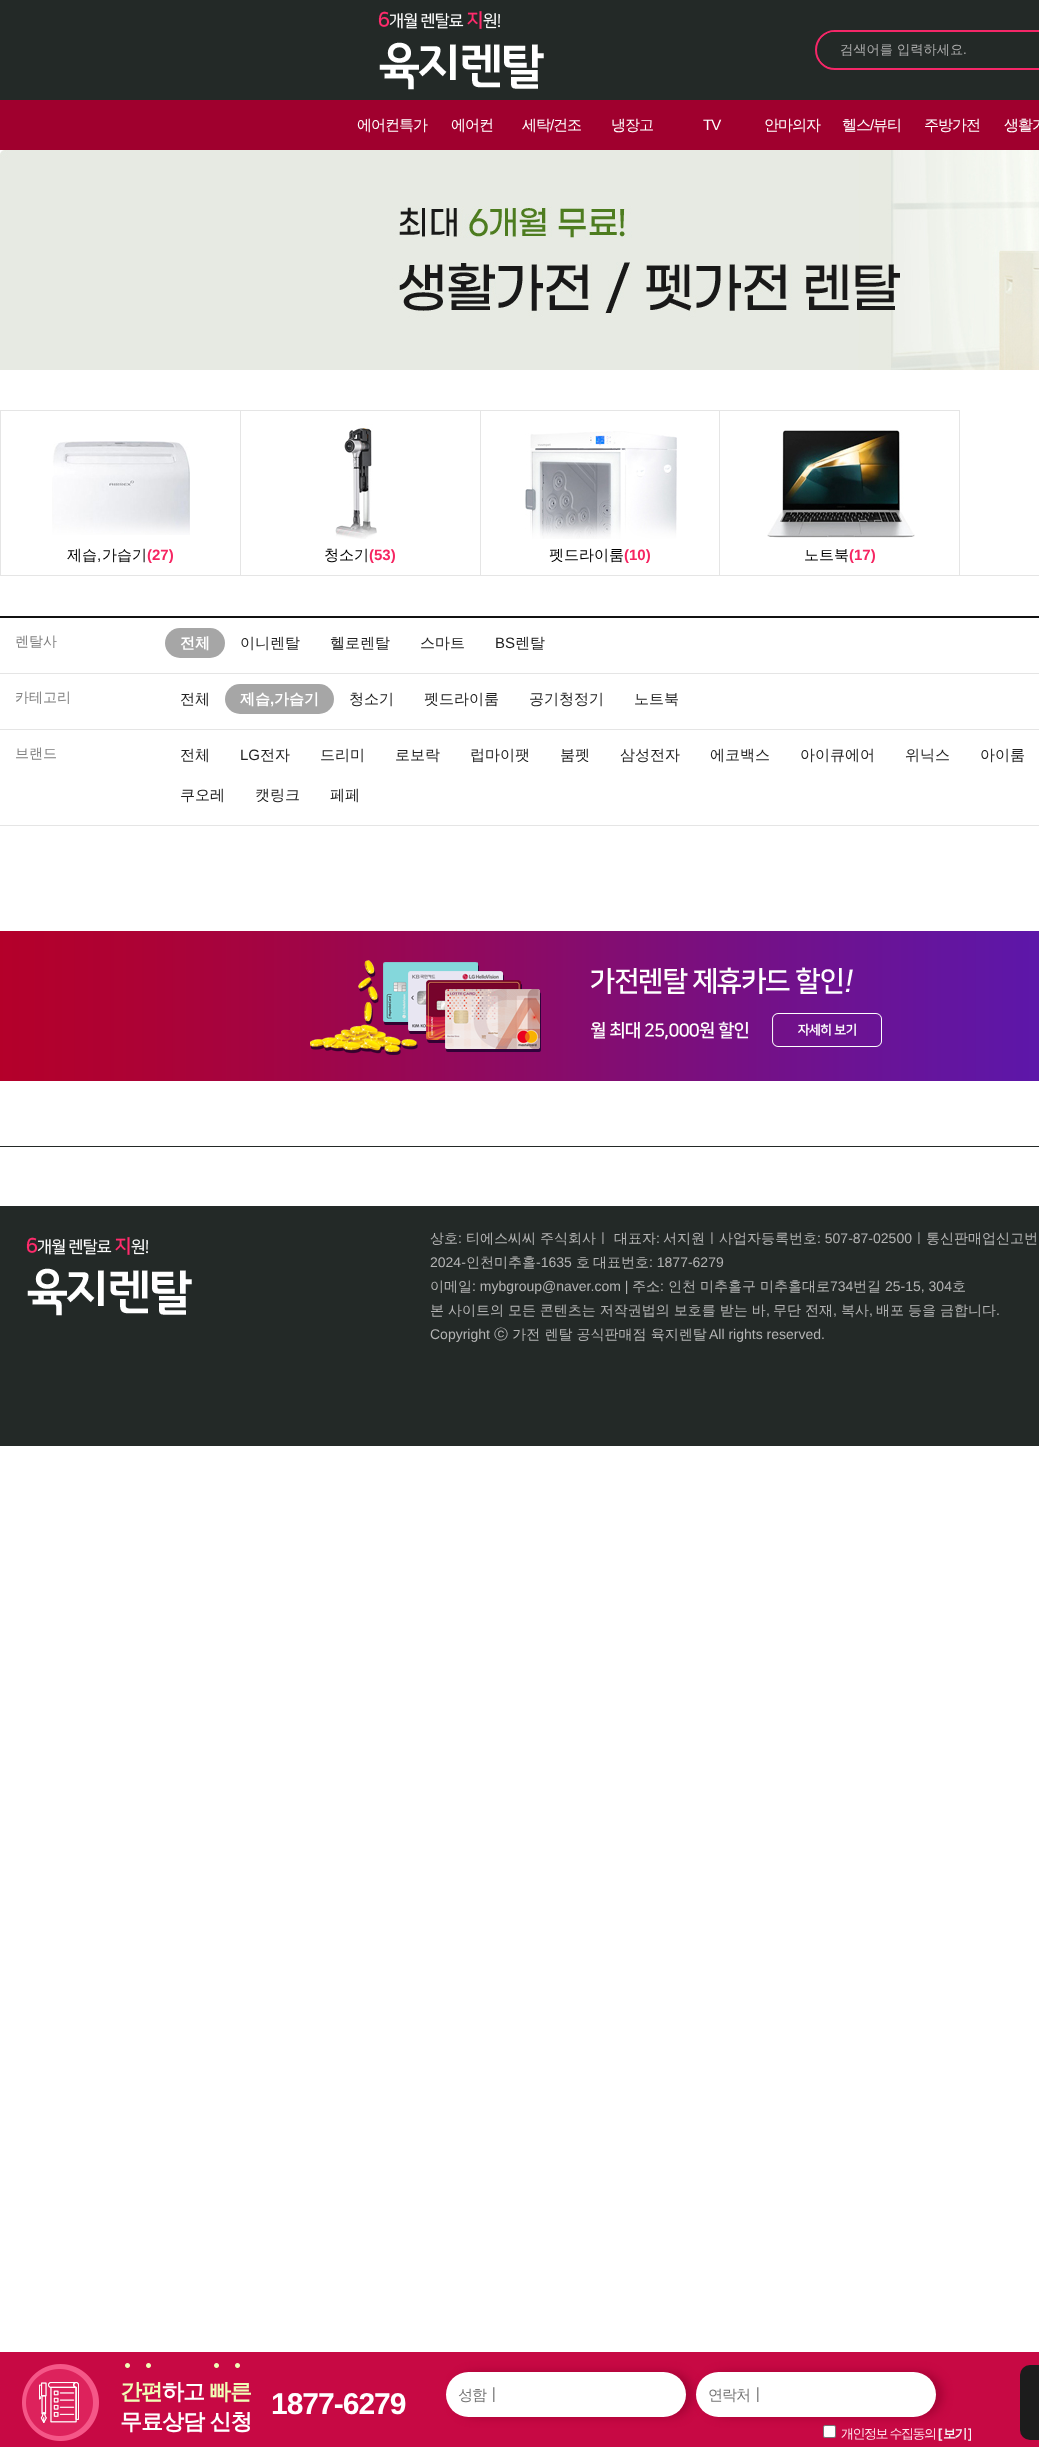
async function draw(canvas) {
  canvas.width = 1039
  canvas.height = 2447
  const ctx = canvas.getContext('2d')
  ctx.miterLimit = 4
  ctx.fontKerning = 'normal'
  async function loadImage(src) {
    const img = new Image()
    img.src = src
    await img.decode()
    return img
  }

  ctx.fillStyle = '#fff'
  ctx.fillRect(0, 0, 1039, 2447)
  ctx.fillStyle = '#232927'
  ctx.fillRect(0, 0, 1039, 100)
  ctx.drawImage(await loadImage('image0.png'), 378, 11, 166, 79)
  ctx.beginPath()
  ctx.roundRect(816, 31, 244, 38, 19)
  ctx.strokeStyle = '#f52768'
  ctx.lineWidth = 2
  ctx.stroke()
  ctx.save()
  ctx.beginPath()
  ctx.roundRect(817, 32, 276, 36, 18)
  ctx.clip()
  ctx.fillRect(820, 32, 219, 35)
  ctx.restore()
  ctx.font = '500 13.25px WenQuanYi Zen Hei'
  ctx.fillStyle = '#ababab'
  ctx.fillText('검색어를 입력하세요', 840, 54)
  ctx.font = '13.25px Liberation Sans'
  ctx.fillText('.', 963, 54)
  ctx.fillStyle = '#a0002e'
  ctx.fillRect(0, 100, 1039, 50)
  ctx.letterSpacing = '-1px'
  ctx.font = '500 15px WenQuanYi Zen Hei'
  ctx.fillStyle = '#fff'
  ctx.fillText('에어컨특가', 357, 130)
  ctx.fillText('에어컨', 451, 130)
  ctx.fillText('세탁', 522, 130)
  ctx.font = '15px Liberation Sans'
  ctx.fillText('/', 550, 130)
  ctx.font = '500 15px WenQuanYi Zen Hei'
  ctx.fillText('건조', 553, 130)
  ctx.fillText('냉장고', 611, 130)
  ctx.font = '15px Liberation Sans'
  ctx.fillText('TV', 703, 130)
  ctx.font = '500 15px WenQuanYi Zen Hei'
  ctx.fillText('안마의자', 764, 130)
  ctx.fillText('헬스', 842, 130)
  ctx.font = '15px Liberation Sans'
  ctx.fillText('/', 870, 130)
  ctx.font = '500 15px WenQuanYi Zen Hei'
  ctx.fillText('뷰티', 873, 130)
  ctx.fillText('주방가전', 924, 130)
  ctx.fillText('생활가', 1004, 130)
  ctx.drawImage(await loadImage('image1.png'), 0, 150, 1039, 220)
  ctx.fillStyle = '#e5e5e5'
  ctx.fillRect(0, 575, 1039, 1)
  ctx.fillRect(0, 410, 1, 166)
  ctx.fillRect(1, 410, 959, 1)
  ctx.fillRect(240, 410, 1, 165)
  ctx.drawImage(await loadImage('image2.png'), 52, 441, 138, 94)
  ctx.letterSpacing = '0px'
  ctx.fillStyle = '#000'
  ctx.fillText('제습', 67, 560)
  ctx.font = '15px Liberation Sans'
  ctx.fillText(',', 97, 560)
  ctx.font = '500 15px WenQuanYi Zen Hei'
  ctx.fillText('가습기', 102, 560)
  ctx.font = 'bold 15px Liberation Sans'
  ctx.fillStyle = '#f62562'
  ctx.fillText('(27)', 147, 560)
  ctx.fillStyle = '#e5e5e5'
  ctx.fillRect(480, 410, 1, 165)
  ctx.drawImage(await loadImage('image3.png'), 335, 424, 42, 115)
  ctx.font = '500 15px WenQuanYi Zen Hei'
  ctx.fillStyle = '#000'
  ctx.fillText('청소기', 324, 560)
  ctx.font = 'bold 15px Liberation Sans'
  ctx.fillStyle = '#f62562'
  ctx.fillText('(53)', 369, 560)
  ctx.fillStyle = '#e5e5e5'
  ctx.fillRect(719, 410, 1, 165)
  ctx.drawImage(await loadImage('image4.png'), 525, 431, 152, 108)
  ctx.font = '500 15px WenQuanYi Zen Hei'
  ctx.fillStyle = '#000'
  ctx.fillText('펫드라이룸', 549, 560)
  ctx.font = 'bold 15px Liberation Sans'
  ctx.fillStyle = '#f62562'
  ctx.fillText('(10)', 624, 560)
  ctx.fillStyle = '#e5e5e5'
  ctx.fillRect(959, 410, 1, 165)
  ctx.drawImage(await loadImage('image5.png'), 767, 430, 148, 108)
  ctx.font = '500 15px WenQuanYi Zen Hei'
  ctx.fillStyle = '#000'
  ctx.fillText('노트북', 804, 560)
  ctx.font = 'bold 15px Liberation Sans'
  ctx.fillStyle = '#f62562'
  ctx.fillText('(17)', 849, 560)
  ctx.fillStyle = '#111'
  ctx.fillRect(0, 616, 1039, 2)
  ctx.fillStyle = '#e5e5e5'
  ctx.fillRect(0, 673, 1039, 1)
  ctx.font = '500 14px WenQuanYi Zen Hei'
  ctx.fillStyle = '#808080'
  ctx.fillText('렌탈사', 15, 646)
  ctx.fillStyle = '#a6a6a6'
  ctx.beginPath()
  ctx.roundRect(165, 628, 60, 30, 15)
  ctx.fill()
  ctx.font = 'bold 15px WenQuanYi Zen Hei'
  ctx.fillStyle = '#fff'
  ctx.fillText('전체', 180, 648)
  ctx.font = '500 15px WenQuanYi Zen Hei'
  ctx.fillStyle = '#222'
  ctx.fillText('이니렌탈', 240, 648)
  ctx.fillText('헬로렌탈', 330, 648)
  ctx.fillText('스마트', 420, 648)
  ctx.font = '15px Liberation Sans'
  ctx.fillText('BS', 495, 648)
  ctx.font = '500 15px WenQuanYi Zen Hei'
  ctx.fillText('렌탈', 515, 648)
  ctx.fillStyle = '#e5e5e5'
  ctx.fillRect(0, 729, 1039, 1)
  ctx.font = '500 14px WenQuanYi Zen Hei'
  ctx.fillStyle = '#808080'
  ctx.fillText('카테고리', 15, 702)
  ctx.font = '500 15px WenQuanYi Zen Hei'
  ctx.fillStyle = '#222'
  ctx.fillText('전체', 180, 704)
  ctx.fillStyle = '#a6a6a6'
  ctx.beginPath()
  ctx.roundRect(225, 684, 109, 30, 15)
  ctx.fill()
  ctx.font = 'bold 15px WenQuanYi Zen Hei'
  ctx.fillStyle = '#fff'
  ctx.fillText('제습', 240, 704)
  ctx.font = 'bold 15px Liberation Sans'
  ctx.fillText(',', 270, 704)
  ctx.font = 'bold 15px WenQuanYi Zen Hei'
  ctx.fillText('가습기', 274, 704)
  ctx.font = '500 15px WenQuanYi Zen Hei'
  ctx.fillStyle = '#222'
  ctx.fillText('청소기', 349, 704)
  ctx.fillText('펫드라이룸', 424, 704)
  ctx.fillText('공기청정기', 529, 704)
  ctx.fillText('노트북', 634, 704)
  ctx.fillStyle = '#e5e5e5'
  ctx.fillRect(0, 825, 1039, 1)
  ctx.font = '500 14px WenQuanYi Zen Hei'
  ctx.fillStyle = '#808080'
  ctx.fillText('브랜드', 15, 758)
  ctx.font = '500 15px WenQuanYi Zen Hei'
  ctx.fillStyle = '#222'
  ctx.fillText('전체', 180, 760)
  ctx.font = '15px Liberation Sans'
  ctx.fillText('LG', 240, 760)
  ctx.font = '500 15px WenQuanYi Zen Hei'
  ctx.fillText('전자', 260, 760)
  ctx.fillText('드리미', 320, 760)
  ctx.fillText('로보락', 395, 760)
  ctx.fillText('럽마이팻', 470, 760)
  ctx.fillText('붐펫', 560, 760)
  ctx.fillText('삼성전자', 620, 760)
  ctx.fillText('에코백스', 710, 760)
  ctx.fillText('아이큐에어', 800, 760)
  ctx.fillText('위닉스', 905, 760)
  ctx.fillText('아이룸', 980, 760)
  ctx.fillText('쿠오레', 180, 800)
  ctx.fillText('캣링크', 255, 800)
  ctx.fillText('페페', 330, 800)
  ctx.drawImage(await loadImage('image6.png'), 0, 931, 1039, 150)
  ctx.fillStyle = '#232927'
  ctx.fillRect(0, 1206, 1039, 240)
  ctx.fillRect(0, 1146, 1039, 1)
  ctx.drawImage(await loadImage('image0.png'), 26, 1237, 166, 79)
  ctx.font = '500 14px WenQuanYi Zen Hei'
  ctx.fillStyle = '#b4b4b4'
  ctx.fillText('상호', 430, 1243)
  ctx.font = '14px Liberation Sans'
  ctx.fillText(':', 458, 1243)
  ctx.font = '500 14px WenQuanYi Zen Hei'
  ctx.fillText('티에스씨씨', 466, 1243)
  ctx.fillText('주식회사ㅣ', 540, 1243)
  ctx.fillText('대표자', 614, 1243)
  ctx.font = '14px Liberation Sans'
  ctx.fillText(':', 656, 1243)
  ctx.font = '500 14px WenQuanYi Zen Hei'
  ctx.fillText('서지원ㅣ사업자등록번호', 663, 1243)
  ctx.font = '14px Liberation Sans'
  ctx.fillText(': 507-87-02500', 817, 1243)
  ctx.font = '500 14px WenQuanYi Zen Hei'
  ctx.fillText('ㅣ통신판매업신고번', 912, 1243)
  ctx.font = '14px Liberation Sans'
  ctx.fillText('2024-', 430, 1267)
  ctx.font = '500 14px WenQuanYi Zen Hei'
  ctx.fillText('인천미추홀', 466, 1267)
  ctx.font = '14px Liberation Sans'
  ctx.fillText('-1635', 536, 1267)
  ctx.font = '500 14px WenQuanYi Zen Hei'
  ctx.fillText('호', 576, 1267)
  ctx.fillText('대표번호', 593, 1267)
  ctx.font = '14px Liberation Sans'
  ctx.fillText(': 1877-6279', 649, 1267)
  ctx.font = '500 14px WenQuanYi Zen Hei'
  ctx.fillText('이메일', 430, 1291)
  ctx.font = '14px Liberation Sans'
  ctx.fillText(': mybgroup@naver.com |', 472, 1291)
  ctx.font = '500 14px WenQuanYi Zen Hei'
  ctx.fillText('주소', 632, 1291)
  ctx.font = '14px Liberation Sans'
  ctx.fillText(':', 660, 1291)
  ctx.font = '500 14px WenQuanYi Zen Hei'
  ctx.fillText('인천', 668, 1291)
  ctx.fillText('미추홀구', 700, 1291)
  ctx.fillText('미추홀대로', 760, 1291)
  ctx.font = '14px Liberation Sans'
  ctx.fillText('734', 830, 1291)
  ctx.font = '500 14px WenQuanYi Zen Hei'
  ctx.fillText('번길', 853, 1291)
  ctx.font = '14px Liberation Sans'
  ctx.fillText('25-15, 304', 885, 1291)
  ctx.font = '500 14px WenQuanYi Zen Hei'
  ctx.fillText('호', 952, 1291)
  ctx.wordSpacing = '-0.25px'
  ctx.fillText('본 사이트의 모든 콘텐츠는 저작권법의 보호를 받는 바', 430, 1315)
  ctx.wordSpacing = '0px'
  ctx.font = '14px Liberation Sans'
  ctx.fillText(',', 766, 1315)
  ctx.wordSpacing = '-0.25px'
  ctx.font = '500 14px WenQuanYi Zen Hei'
  ctx.fillText('무단 전재', 773, 1315)
  ctx.wordSpacing = '0px'
  ctx.font = '14px Liberation Sans'
  ctx.fillText(',', 833, 1315)
  ctx.font = '500 14px WenQuanYi Zen Hei'
  ctx.fillText('복사', 841, 1315)
  ctx.font = '14px Liberation Sans'
  ctx.fillText(',', 869, 1315)
  ctx.wordSpacing = '-0.25px'
  ctx.font = '500 14px WenQuanYi Zen Hei'
  ctx.fillText('배포 등을 금합니다', 876, 1315)
  ctx.wordSpacing = '0px'
  ctx.font = '14px Liberation Sans'
  ctx.fillText('.', 996, 1315)
  ctx.fillText('Copyright', 430, 1339)
  ctx.font = '500 14px WenQuanYi Zen Hei'
  ctx.fillText('ⓒ 가전 렌탈 공식판매점 육지렌탈', 494, 1339)
  ctx.font = '14px Liberation Sans'
  ctx.fillText('All rights reserved.', 709, 1339)
  ctx.fillStyle = '#c70944'
  ctx.fillRect(0, 2352, 1039, 95)
  ctx.drawImage(await loadImage('image7.png'), 22, 2364, 77, 77)
  ctx.drawImage(await loadImage('image8.png'), 125, 2363, 26, 5)
  ctx.letterSpacing = '-1px'
  ctx.font = 'bold 22px WenQuanYi Zen Hei'
  ctx.fillStyle = '#f0ffb6'
  ctx.fillText('간편', 120, 2399)
  ctx.fillStyle = '#fff'
  ctx.fillText('하고', 162, 2399)
  ctx.drawImage(await loadImage('image8.png'), 214, 2363, 26, 5)
  ctx.fillStyle = '#f0ffb6'
  ctx.fillText('빠른', 209, 2399)
  ctx.fillStyle = '#fff'
  ctx.fillText('무료상담 신청', 120, 2429)
  ctx.font = 'bold 30px Liberation Sans'
  ctx.fillText('1877-6279', 271, 2414)
  ctx.save()
  ctx.beginPath()
  ctx.rect(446, 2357, 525, 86)
  ctx.clip()
  ctx.fillStyle = '#a60235'
  ctx.filter = 'blur(5px)'
  ctx.beginPath()
  ctx.roundRect(453, 2372, 240, 45, 22.5)
  ctx.fill()
  ctx.filter = 'none'
  ctx.restore()
  ctx.beginPath()
  ctx.roundRect(446, 2372, 240, 45, 22.5)
  ctx.fill()
  ctx.font = '500 15px WenQuanYi Zen Hei'
  ctx.fillStyle = '#757575'
  ctx.fillText('성함┃', 458, 2400)
  ctx.fillStyle = '#a60235'
  ctx.filter = 'blur(5px)'
  ctx.beginPath()
  ctx.roundRect(703, 2372, 240, 45, 22.5)
  ctx.fill()
  ctx.filter = 'none'
  ctx.fillStyle = '#fff'
  ctx.beginPath()
  ctx.roundRect(696, 2372, 240, 45, 22.5)
  ctx.fill()
  ctx.fillStyle = '#757575'
  ctx.fillText('연락처┃', 708, 2400)
  ctx.fillStyle = '#fff'
  ctx.beginPath()
  ctx.roundRect(823.5, 2425.5, 12, 12, 1.5)
  ctx.fill()
  ctx.strokeStyle = '#767676'
  ctx.lineWidth = 1
  ctx.stroke()
  ctx.letterSpacing = '-1.5px'
  ctx.font = '500 13px WenQuanYi Zen Hei'
  ctx.fillStyle = '#ffe5ec'
  ctx.fillText('개인정보 수집동의', 841, 2438)
  ctx.font = 'bold 13px Liberation Sans'
  ctx.fillStyle = '#f5f5f5'
  ctx.fillText('[', 938, 2438)
  ctx.font = 'bold 13px WenQuanYi Zen Hei'
  ctx.fillText('보기', 943, 2438)
  ctx.save()
  ctx.beginPath()
  ctx.rect(446, 2357, 525, 86)
  ctx.clip()
  ctx.font = 'bold 13px Liberation Sans'
  ctx.fillText(']', 968, 2438)
  ctx.restore()
  ctx.fillStyle = '#1c1c1c'
  ctx.beginPath()
  ctx.roundRect(1020, 2365, 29, 75, 10)
  ctx.fill()
}

draw(document.querySelector('canvas'))
